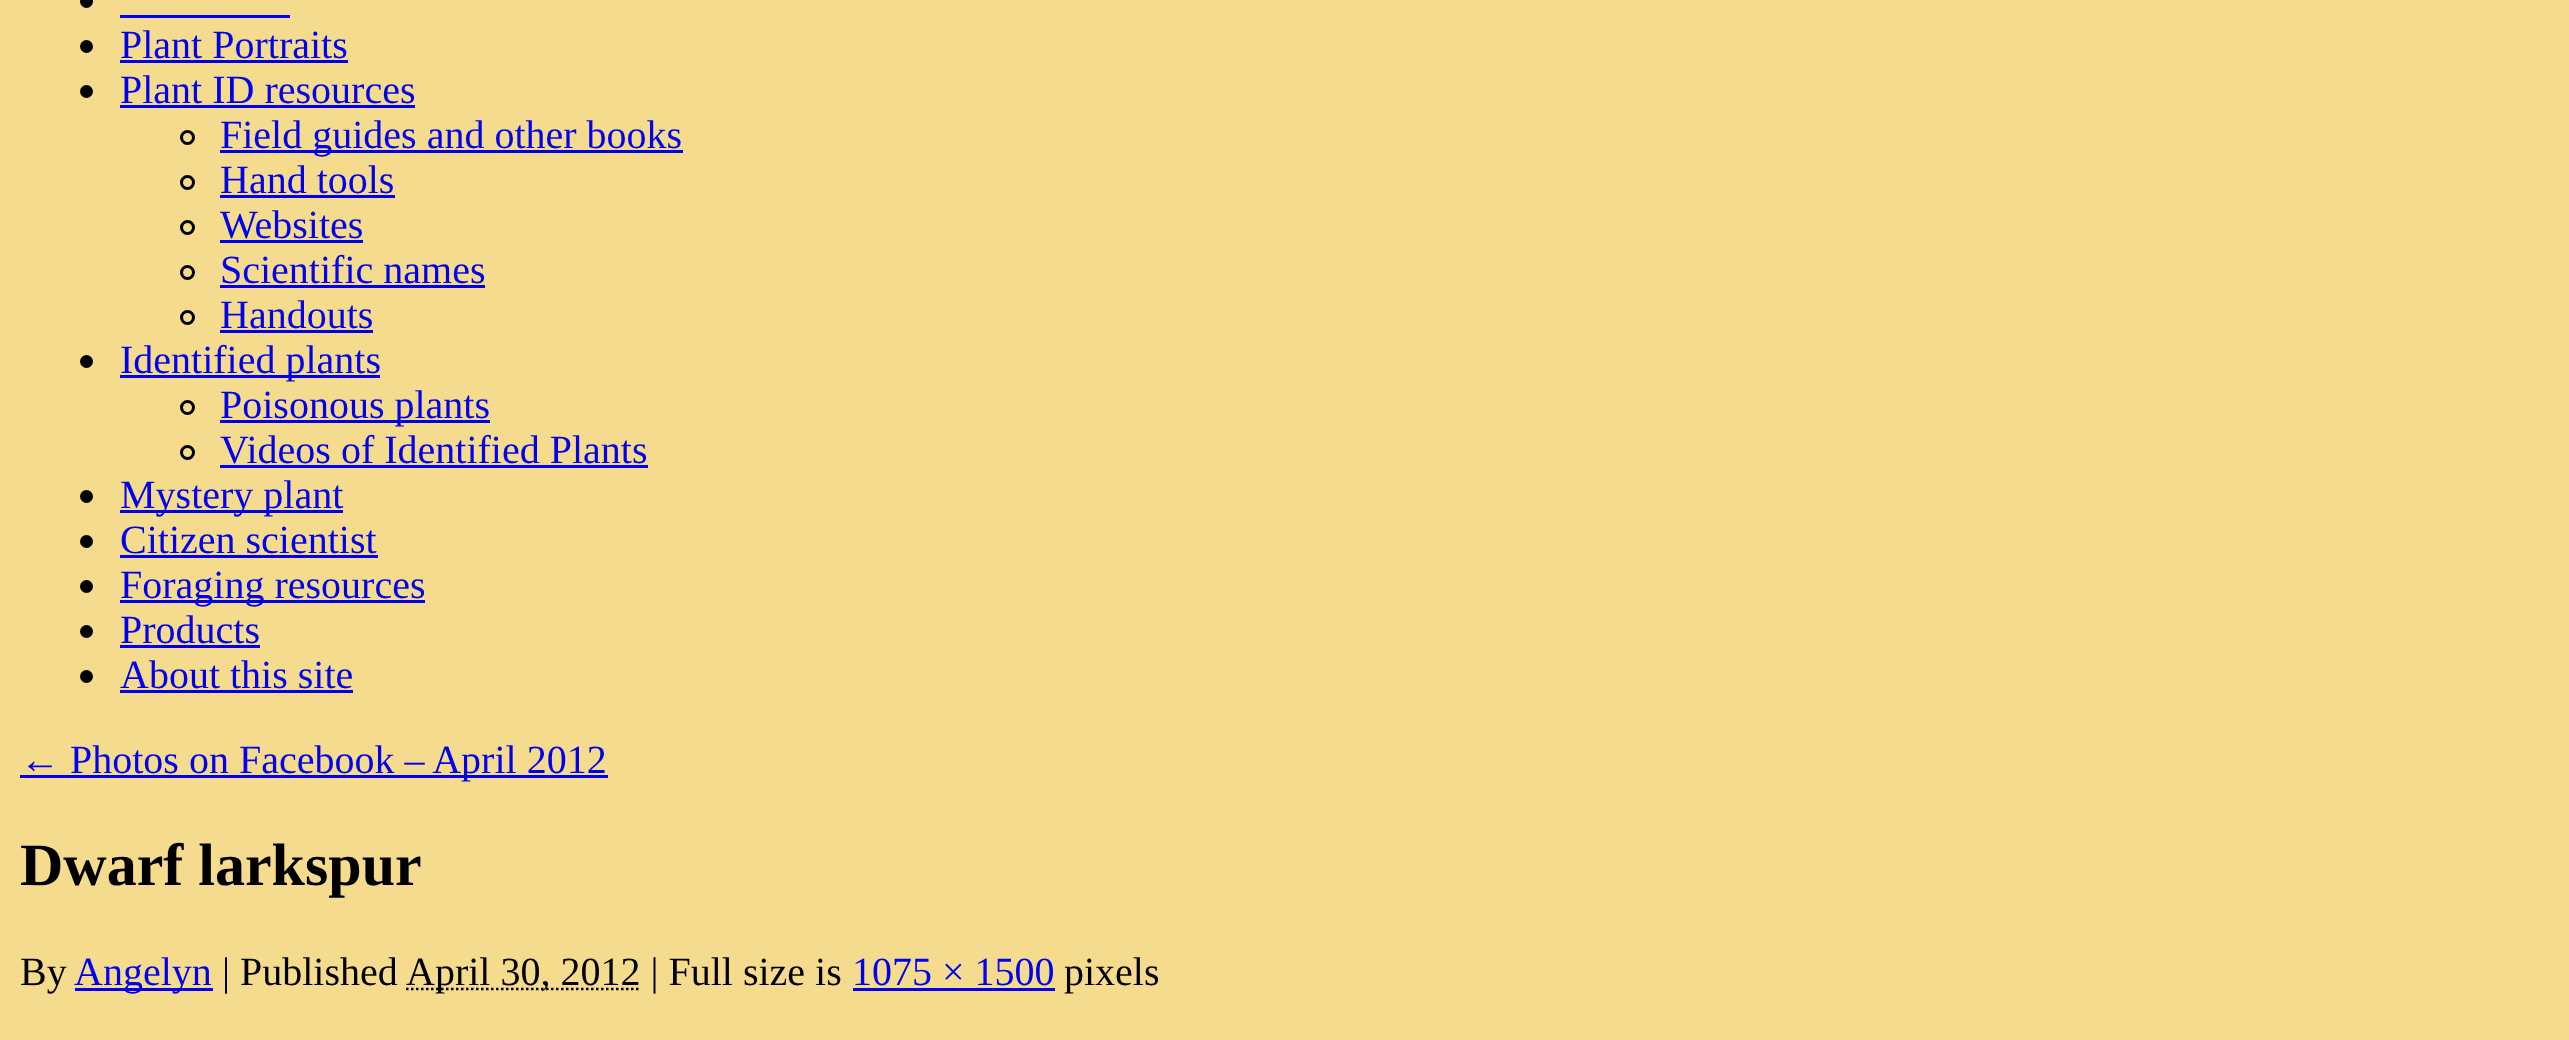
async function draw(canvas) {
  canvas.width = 2569
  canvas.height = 1040
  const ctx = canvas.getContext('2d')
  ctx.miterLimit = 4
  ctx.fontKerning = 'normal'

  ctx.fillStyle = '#f5db8d'
  ctx.fillRect(0, 0, 2569, 1040)
  ctx.fillStyle = '#000'
  ctx.beginPath()
  ctx.arc(86.5, 1.5, 6.5, 0, 2 * Math.PI)
  ctx.fill()
  ctx.fillStyle = '#00e'
  ctx.fillRect(120, 15, 170, 3)
  ctx.fillStyle = '#000'
  ctx.beginPath()
  ctx.arc(86.5, 46.5, 6.5, 0, 2 * Math.PI)
  ctx.fill()
  ctx.font = '40px Liberation Serif'
  ctx.fillStyle = '#00e'
  ctx.fillText('Plant Portraits', 120, 58)
  ctx.fillRect(120, 60, 228, 3)
  ctx.fillStyle = '#000'
  ctx.beginPath()
  ctx.arc(86.5, 91.5, 6.5, 0, 2 * Math.PI)
  ctx.fill()
  ctx.fillStyle = '#00e'
  ctx.fillText('Plant ID resources', 120, 103)
  ctx.fillRect(120, 105, 295, 3)
  ctx.beginPath()
  ctx.arc(187.5, 137.5, 6, 0, 2 * Math.PI)
  ctx.strokeStyle = '#000'
  ctx.lineWidth = 3
  ctx.stroke()
  ctx.fillRect(220, 150, 463, 3)
  ctx.fillText('Field guides and other books', 220, 148)
  ctx.beginPath()
  ctx.arc(187.5, 182.5, 6, 0, 2 * Math.PI)
  ctx.stroke()
  ctx.fillText('Hand tools', 220, 193)
  ctx.fillRect(220, 195, 175, 3)
  ctx.beginPath()
  ctx.arc(187.5, 227.5, 6, 0, 2 * Math.PI)
  ctx.stroke()
  ctx.fillText('Websites', 220, 238)
  ctx.fillRect(220, 240, 143, 3)
  ctx.beginPath()
  ctx.arc(187.5, 272.5, 6, 0, 2 * Math.PI)
  ctx.stroke()
  ctx.fillText('Scientific names', 220, 283)
  ctx.fillRect(220, 285, 265, 3)
  ctx.beginPath()
  ctx.arc(187.5, 317.5, 6, 0, 2 * Math.PI)
  ctx.stroke()
  ctx.fillText('Handouts', 220, 328)
  ctx.fillRect(220, 330, 153, 3)
  ctx.fillStyle = '#000'
  ctx.beginPath()
  ctx.arc(86.5, 361.5, 6.5, 0, 2 * Math.PI)
  ctx.fill()
  ctx.fillStyle = '#00e'
  ctx.fillRect(120, 375, 260, 3)
  ctx.fillText('Identified plants', 120, 373)
  ctx.beginPath()
  ctx.arc(187.5, 407.5, 6, 0, 2 * Math.PI)
  ctx.stroke()
  ctx.fillRect(220, 420, 270, 3)
  ctx.fillText('Poisonous plants', 220, 418)
  ctx.beginPath()
  ctx.arc(187.5, 452.5, 6, 0, 2 * Math.PI)
  ctx.stroke()
  ctx.fillText('Videos of Identified Plants', 220, 463)
  ctx.fillRect(220, 465, 428, 3)
  ctx.fillStyle = '#000'
  ctx.beginPath()
  ctx.arc(86.5, 496.5, 6.5, 0, 2 * Math.PI)
  ctx.fill()
  ctx.fillStyle = '#00e'
  ctx.fillRect(120, 510, 223, 3)
  ctx.fillText('Mystery plant', 120, 508)
  ctx.fillStyle = '#000'
  ctx.beginPath()
  ctx.arc(86.5, 541.5, 6.5, 0, 2 * Math.PI)
  ctx.fill()
  ctx.fillStyle = '#00e'
  ctx.fillText('Citizen scientist', 120, 553)
  ctx.fillRect(120, 555, 258, 3)
  ctx.fillStyle = '#000'
  ctx.beginPath()
  ctx.arc(86.5, 586.5, 6.5, 0, 2 * Math.PI)
  ctx.fill()
  ctx.fillStyle = '#00e'
  ctx.fillRect(120, 600, 305, 3)
  ctx.fillText('Foraging resources', 120, 598)
  ctx.fillStyle = '#000'
  ctx.beginPath()
  ctx.arc(86.5, 631.5, 6.5, 0, 2 * Math.PI)
  ctx.fill()
  ctx.fillStyle = '#00e'
  ctx.fillText('Products', 120, 643)
  ctx.fillRect(120, 645, 140, 3)
  ctx.fillStyle = '#000'
  ctx.beginPath()
  ctx.arc(86.5, 676.5, 6.5, 0, 2 * Math.PI)
  ctx.fill()
  ctx.fillStyle = '#00e'
  ctx.fillText('About this site', 120, 688)
  ctx.fillRect(120, 690, 233, 3)
  ctx.fillRect(20, 775, 588, 3)
  ctx.fillText('← Photos on Facebook – April 2012', 20, 773)
  ctx.font = 'bold 60px Liberation Serif'
  ctx.fillStyle = '#000'
  ctx.fillText('Dwarf larkspur', 20, 885)
  ctx.font = '40px Liberation Serif'
  ctx.fillText('By', 20, 985)
  ctx.fillStyle = '#00e'
  ctx.fillRect(75, 988, 138, 3)
  ctx.fillText('Angelyn', 74, 985)
  ctx.fillStyle = '#000'
  ctx.fillText('| Published', 222, 985)
  ctx.beginPath()
  ctx.moveTo(406, 989)
  ctx.lineTo(640.5, 989)
  ctx.lineWidth = 2.5
  ctx.setLineDash([2.5, 2.5])
  ctx.stroke()
  ctx.fillText('April 30, 2012 | Full size is', 406, 985)
  ctx.fillStyle = '#00e'
  ctx.fillText('1075 × 1500', 852, 985)
  ctx.fillRect(853, 988, 202, 3)
  ctx.fillStyle = '#000'
  ctx.fillText('pixels', 1064, 985)
}

draw(document.querySelector('canvas'))
